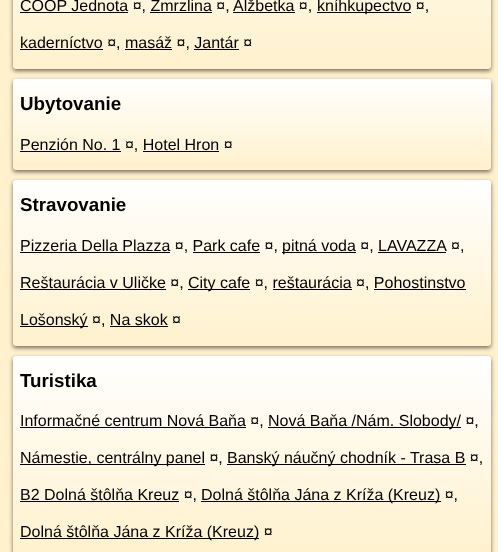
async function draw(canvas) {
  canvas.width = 498
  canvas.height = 552
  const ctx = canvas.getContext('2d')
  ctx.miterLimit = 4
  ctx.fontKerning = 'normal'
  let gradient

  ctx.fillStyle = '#fff1cc'
  ctx.fillRect(0, 0, 498, 552)
  ctx.fillStyle = '#0000008c'
  ctx.filter = 'blur(2px)'
  ctx.beginPath()
  ctx.roundRect(13, -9, 478, 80, 3)
  ctx.fill()
  ctx.filter = 'none'
  gradient = ctx.createLinearGradient(252, -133, 252, 69)
  gradient.addColorStop(0, '#fff')
  gradient.addColorStop(1, '#fff1cc')
  ctx.fillStyle = gradient
  ctx.beginPath()
  ctx.roundRect(13, -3, 478, 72, 3)
  ctx.fill()
  ctx.fillStyle = '#000'
  ctx.fillRect(20, 12, 108, 1)
  ctx.font = '16px Liberation Sans'
  ctx.fillText('COOP Jednota ¤, Zmrzlina ¤,', 20, 11)
  ctx.fillRect(233, 12, 62, 1)
  ctx.fillText('Alžbetka ¤,', 233, 11)
  ctx.fillRect(317, 12, 94, 1)
  ctx.fillText('kníhkupectvo ¤,', 317, 11)
  ctx.fillRect(150, 12, 62, 1)
  ctx.fillRect(20, 49, 83, 1)
  ctx.fillText('kaderníctvo ¤, masáž ¤, Jantár ¤', 20, 48)
  ctx.fillRect(125, 49, 47, 1)
  ctx.fillRect(194, 49, 45, 1)
  ctx.fillStyle = '#0000008c'
  ctx.filter = 'blur(2px)'
  ctx.beginPath()
  ctx.roundRect(13, 81, 478, 91, 3)
  ctx.fill()
  ctx.filter = 'none'
  gradient = ctx.createLinearGradient(252, 79, 252, 170)
  gradient.addColorStop(0, '#fff')
  gradient.addColorStop(1, '#fff1cc')
  ctx.fillStyle = gradient
  ctx.beginPath()
  ctx.roundRect(13, 79, 478, 91, 3)
  ctx.fill()
  ctx.font = 'bold 18.75px Liberation Sans'
  ctx.fillStyle = '#000'
  ctx.fillText('Ubytovanie', 20, 110)
  ctx.fillRect(20, 151, 101, 1)
  ctx.font = '16px Liberation Sans'
  ctx.fillText('Penzión No. 1 ¤, Hotel Hron ¤', 20, 150)
  ctx.fillRect(143, 151, 76, 1)
  ctx.fillStyle = '#0000008c'
  ctx.filter = 'blur(2px)'
  ctx.beginPath()
  ctx.roundRect(13, 182, 478, 166, 3)
  ctx.fill()
  ctx.filter = 'none'
  gradient = ctx.createLinearGradient(252, 180, 252, 346)
  gradient.addColorStop(0, '#fff')
  gradient.addColorStop(1, '#fff1cc')
  ctx.fillStyle = gradient
  ctx.beginPath()
  ctx.roundRect(13, 180, 478, 166, 3)
  ctx.fill()
  ctx.font = 'bold 18.75px Liberation Sans'
  ctx.fillStyle = '#000'
  ctx.fillText('Stravovanie', 20, 211)
  ctx.fillRect(20, 252, 150, 1)
  ctx.font = '16px Liberation Sans'
  ctx.fillText('Pizzeria Della Plazza ¤, Park cafe ¤,', 20, 251)
  ctx.fillRect(282, 252, 74, 1)
  ctx.fillText('pitná voda ¤, LAVAZZA', 282, 251)
  ctx.fillText('¤,', 451, 251)
  ctx.fillRect(193, 252, 67, 1)
  ctx.fillRect(378, 252, 68, 1)
  ctx.fillRect(20, 289, 146, 1)
  ctx.fillText('Reštaurácia v Uličke ¤,', 20, 288)
  ctx.fillRect(188, 289, 62, 1)
  ctx.fillText('City cafe ¤, reštaurácia ¤, Pohostinstvo', 188, 288)
  ctx.fillRect(273, 289, 79, 1)
  ctx.fillRect(20, 326, 68, 1)
  ctx.fillText('Lošonský ¤, Na skok ¤', 20, 325)
  ctx.fillRect(374, 289, 92, 1)
  ctx.fillRect(110, 326, 58, 1)
  ctx.fillStyle = '#0000008c'
  ctx.filter = 'blur(2px)'
  ctx.beginPath()
  ctx.roundRect(13, 358, 478, 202, 3)
  ctx.fill()
  ctx.filter = 'none'
  gradient = ctx.createLinearGradient(252, 356, 252, 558)
  gradient.addColorStop(0, '#fff')
  gradient.addColorStop(1, '#fff1cc')
  ctx.fillStyle = gradient
  ctx.beginPath()
  ctx.roundRect(13, 356, 478, 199, 3)
  ctx.fill()
  ctx.font = 'bold 18.75px Liberation Sans'
  ctx.fillStyle = '#000'
  ctx.fillText('Turistika', 20, 387)
  ctx.fillRect(20, 427, 226, 1)
  ctx.font = '16px Liberation Sans'
  ctx.fillText('Informačné centrum Nová Baňa ¤,', 20, 426)
  ctx.fillRect(268, 427, 193, 1)
  ctx.fillText('Nová Baňa /Nám. Slobody/ ¤,', 268, 426)
  ctx.fillRect(20, 464, 185, 1)
  ctx.fillText('Námestie, centrálny panel ¤,', 20, 463)
  ctx.fillRect(227, 464, 239, 1)
  ctx.fillText('Banský náučný chodník - Trasa B ¤,', 227, 463)
  ctx.fillRect(20, 501, 159, 1)
  ctx.fillText('B2 Dolná štôlňa Kreuz ¤,', 20, 500)
  ctx.fillRect(201, 501, 240, 1)
  ctx.fillText('Dolná štôlňa Jána z Kríža (Kreuz) ¤,', 201, 500)
  ctx.fillRect(20, 538, 239, 1)
  ctx.fillText('Dolná štôlňa Jána z Kríža (Kreuz) ¤', 20, 537)
}

draw(document.querySelector('canvas'))
